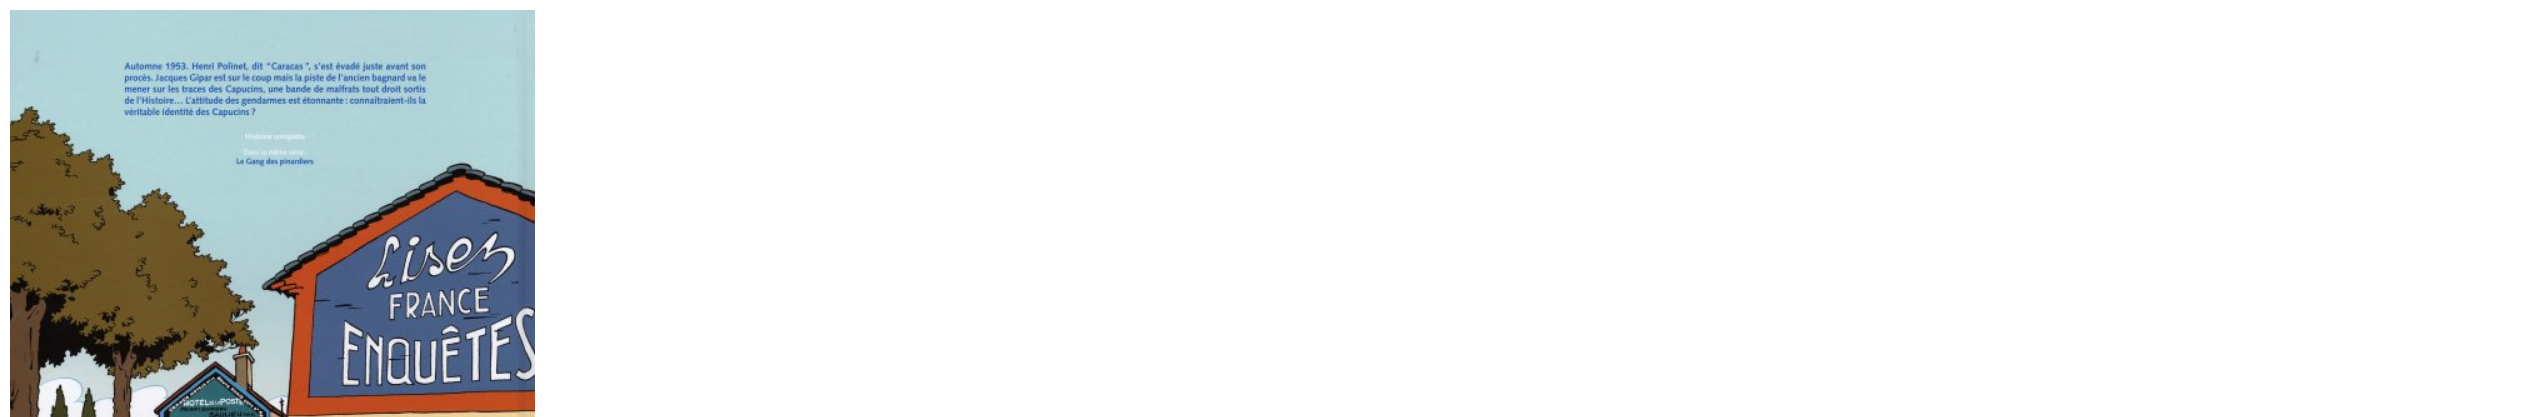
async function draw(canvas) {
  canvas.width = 2546
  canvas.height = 417
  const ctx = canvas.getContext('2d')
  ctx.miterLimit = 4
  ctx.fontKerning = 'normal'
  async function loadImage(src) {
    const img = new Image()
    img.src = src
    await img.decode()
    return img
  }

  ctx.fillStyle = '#fff'
  ctx.fillRect(0, 0, 2546, 417)
  ctx.drawImage(await loadImage('image0.png'), 10, 10, 525, 407)
}

draw(document.querySelector('canvas'))
